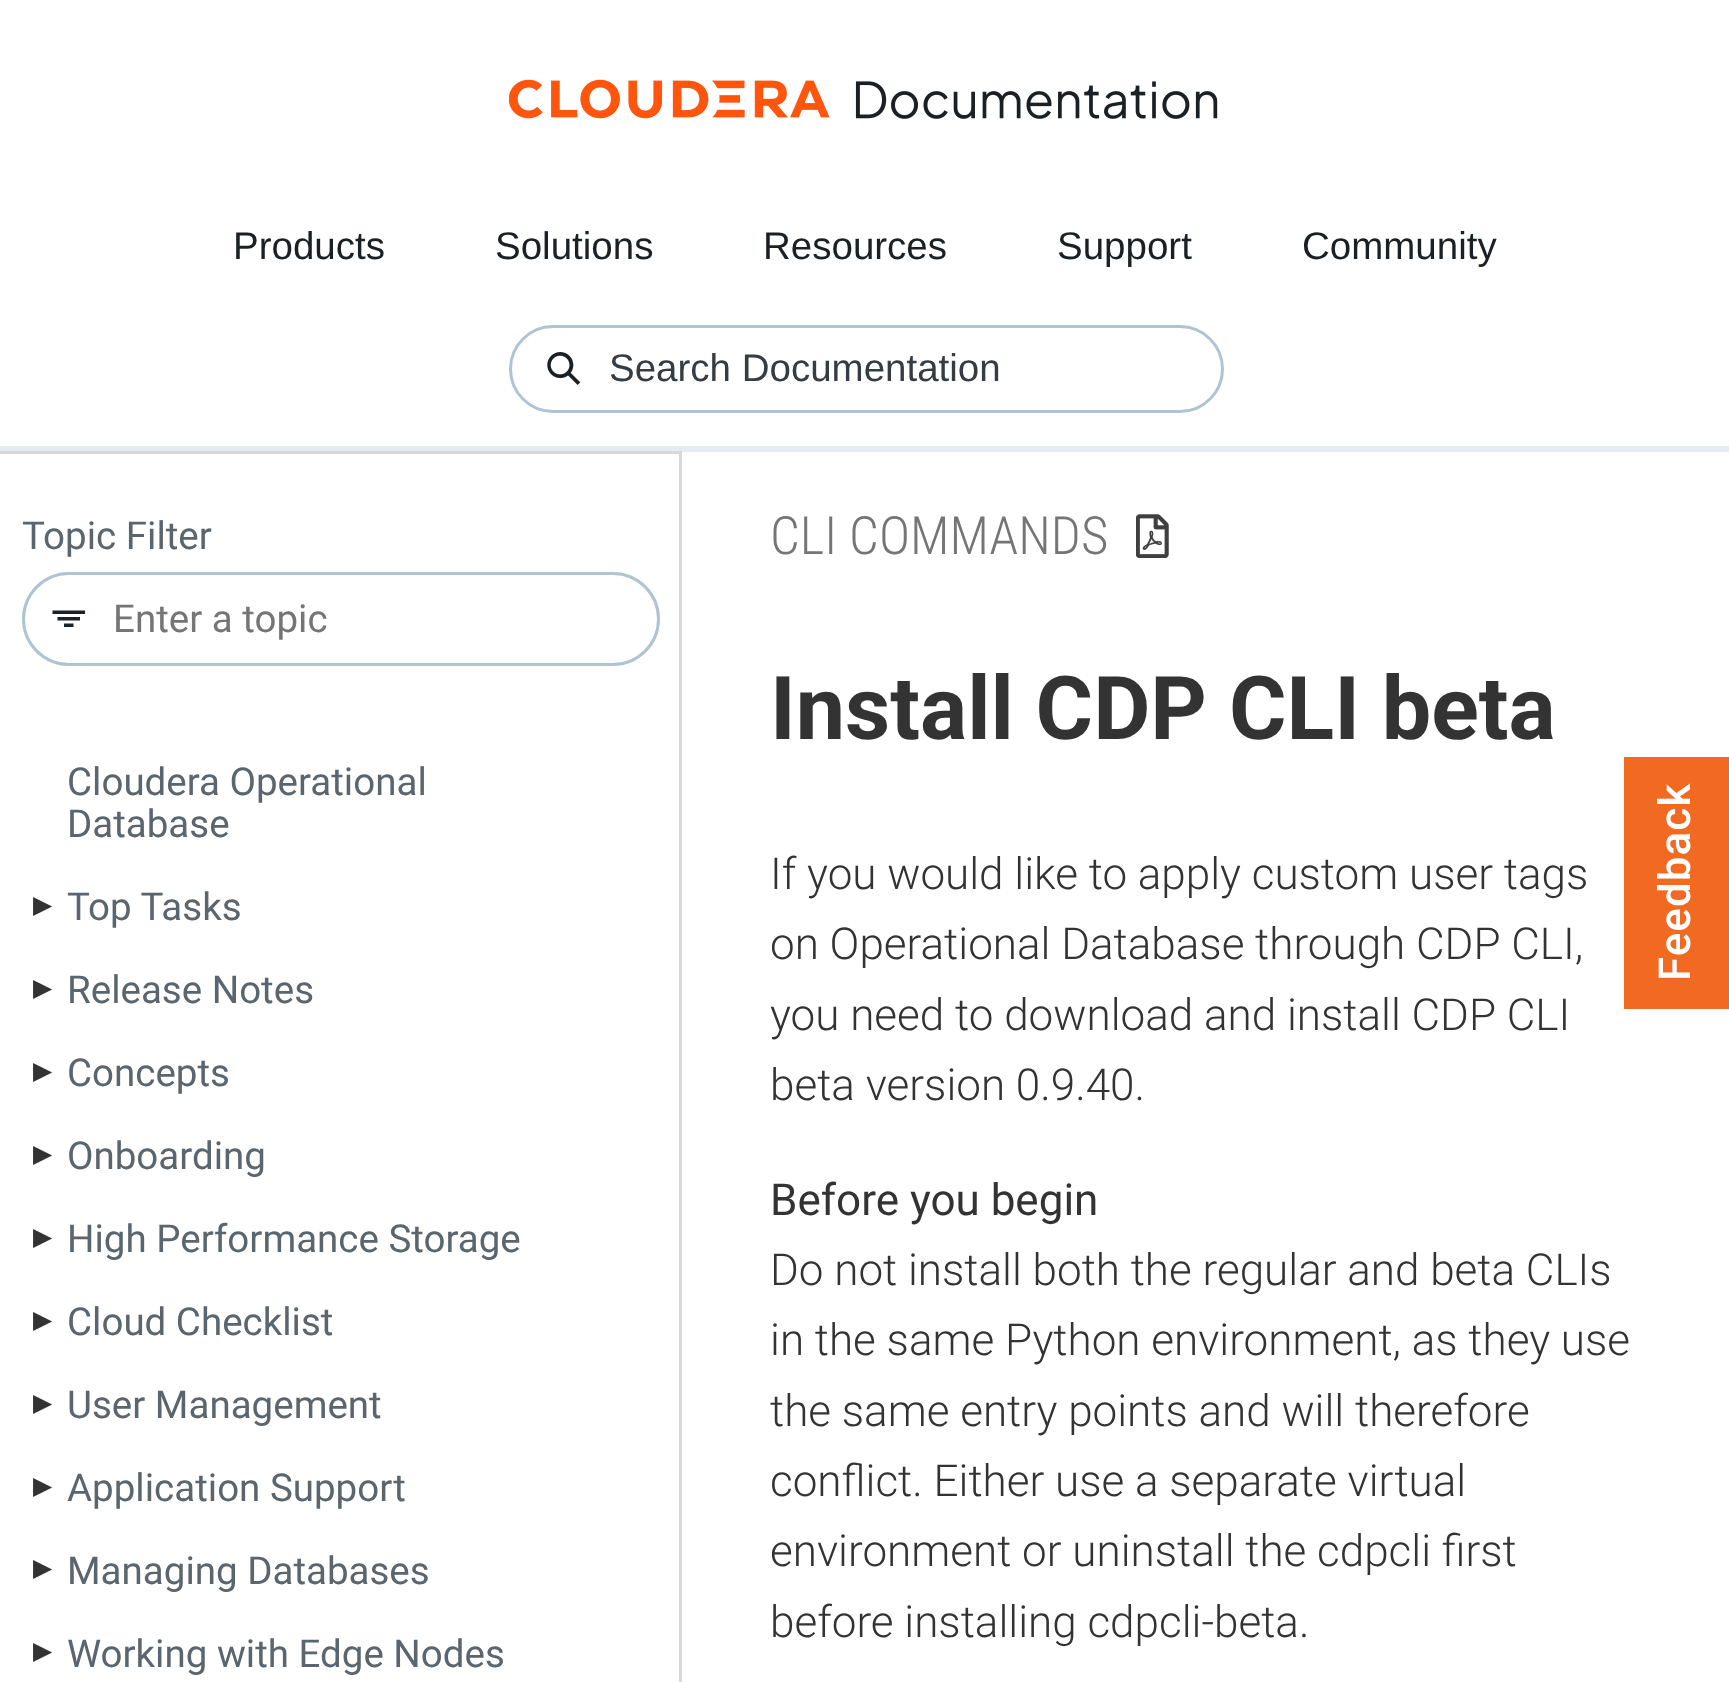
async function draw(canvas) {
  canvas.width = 1729
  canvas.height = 1682
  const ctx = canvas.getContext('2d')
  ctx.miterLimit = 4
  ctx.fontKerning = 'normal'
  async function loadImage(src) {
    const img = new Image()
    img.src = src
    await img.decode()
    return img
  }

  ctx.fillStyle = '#fff'
  ctx.fillRect(0, 0, 1729, 1682)
  ctx.fillStyle = '#e5ecf1'
  ctx.fillRect(0, 446, 1729, 6)
  ctx.drawImage(await loadImage('image0.png'), 509, 79, 709, 40)
  ctx.font = '38.5px Liberation Sans'
  ctx.fillStyle = '#1a2024'
  ctx.fillText('Products', 233, 259)
  ctx.fillText('Solutions', 495, 259)
  ctx.fillText('Resources', 763, 259)
  ctx.fillText('Support', 1057, 259)
  ctx.fillText('Community', 1302, 259)
  ctx.beginPath()
  ctx.roundRect(510.5, 326.5, 712, 85, 42.5)
  ctx.strokeStyle = '#afc4d2'
  ctx.lineWidth = 3
  ctx.stroke()
  ctx.drawImage(await loadImage('image1.png'), 547, 352, 34, 33)
  ctx.fillStyle = '#333d43'
  ctx.fillText('Search Documentation', 609, 381)
  ctx.save()
  ctx.beginPath()
  ctx.rect(0, 451, 682, 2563)
  ctx.clip()
  ctx.fillStyle = '#d6d8db'
  ctx.beginPath()
  ctx.moveTo(-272, 179)
  ctx.lineTo(954, 179)
  ctx.lineTo(954, 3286)
  ctx.lineTo(-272, 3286)
  ctx.closePath()
  ctx.moveTo(-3, 454)
  ctx.lineTo(679, 454)
  ctx.lineTo(679, 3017)
  ctx.lineTo(-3, 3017)
  ctx.closePath()
  ctx.fill('evenodd')
  ctx.restore()
  ctx.font = '38.5px Roboto'
  ctx.fillStyle = '#5a656d'
  ctx.fillText('Topic Filter', 22, 549)
  ctx.beginPath()
  ctx.roundRect(23.5, 573.5, 635, 91, 45.5)
  ctx.stroke()
  ctx.fillStyle = '#1b2329'
  ctx.beginPath()
  ctx.moveTo(52.5, 614)
  ctx.lineTo(85, 614)
  ctx.lineTo(85, 610.5)
  ctx.lineTo(52.5, 610.5)
  ctx.closePath()
  ctx.moveTo(57.5, 620.5)
  ctx.lineTo(80, 620.5)
  ctx.lineTo(80, 617)
  ctx.lineTo(57.5, 617)
  ctx.closePath()
  ctx.moveTo(64, 627)
  ctx.lineTo(73.5, 627)
  ctx.lineTo(73.5, 623.5)
  ctx.lineTo(64, 623.5)
  ctx.closePath()
  ctx.fill('evenodd')
  ctx.fillStyle = '#757575'
  ctx.fillText('Enter a topic', 113, 632)
  ctx.fillStyle = '#5a656d'
  ctx.fillText('Cloudera Operational', 67, 795)
  ctx.fillText('Database', 67, 837)
  ctx.font = '25px DejaVu Sans'
  ctx.fillStyle = '#333'
  ctx.fillText('▶︎', 33, 913)
  ctx.font = '38.5px Roboto'
  ctx.fillStyle = '#5a656d'
  ctx.fillText('Top Tasks', 67, 920)
  ctx.font = '25px DejaVu Sans'
  ctx.fillStyle = '#333'
  ctx.fillText('▶︎', 33, 996)
  ctx.font = '38.5px Roboto'
  ctx.fillStyle = '#5a656d'
  ctx.fillText('Release Notes', 67, 1003)
  ctx.font = '25px DejaVu Sans'
  ctx.fillStyle = '#333'
  ctx.fillText('▶︎', 33, 1079)
  ctx.font = '38.5px Roboto'
  ctx.fillStyle = '#5a656d'
  ctx.fillText('Concepts', 67, 1086)
  ctx.font = '25px DejaVu Sans'
  ctx.fillStyle = '#333'
  ctx.fillText('▶︎', 33, 1162)
  ctx.font = '38.5px Roboto'
  ctx.fillStyle = '#5a656d'
  ctx.fillText('Onboarding', 67, 1169)
  ctx.font = '25px DejaVu Sans'
  ctx.fillStyle = '#333'
  ctx.fillText('▶︎', 33, 1245)
  ctx.font = '38.5px Roboto'
  ctx.fillStyle = '#5a656d'
  ctx.fillText('High Performance Storage', 67, 1252)
  ctx.font = '25px DejaVu Sans'
  ctx.fillStyle = '#333'
  ctx.fillText('▶︎', 33, 1328)
  ctx.font = '38.5px Roboto'
  ctx.fillStyle = '#5a656d'
  ctx.fillText('Cloud Checklist', 67, 1335)
  ctx.font = '25px DejaVu Sans'
  ctx.fillStyle = '#333'
  ctx.fillText('▶︎', 33, 1411)
  ctx.font = '38.5px Roboto'
  ctx.fillStyle = '#5a656d'
  ctx.fillText('User Management', 67, 1418)
  ctx.font = '25px DejaVu Sans'
  ctx.fillStyle = '#333'
  ctx.fillText('▶︎', 33, 1494)
  ctx.font = '38.5px Roboto'
  ctx.fillStyle = '#5a656d'
  ctx.fillText('Application Support', 67, 1501)
  ctx.font = '25px DejaVu Sans'
  ctx.fillStyle = '#333'
  ctx.fillText('▶︎', 33, 1576)
  ctx.font = '38.5px Roboto'
  ctx.fillStyle = '#5a656d'
  ctx.fillText('Managing Databases', 67, 1584)
  ctx.font = '25px DejaVu Sans'
  ctx.fillStyle = '#333'
  ctx.fillText('▶︎', 33, 1659)
  ctx.font = '38.5px Roboto'
  ctx.fillStyle = '#5a656d'
  ctx.fillText('Working with Edge Nodes', 67, 1667)
  ctx.font = '300 52.75px Roboto Condensed'
  ctx.fillStyle = '#757575'
  ctx.fillText('CLI COMMANDS', 770, 554)
  ctx.drawImage(await loadImage('image2.png'), 1136, 514, 33, 44)
  ctx.font = 'bold 88px Roboto'
  ctx.fillStyle = '#333'
  ctx.fillText('Install CDP CLI beta', 770, 739)
  ctx.font = '300 44px Roboto'
  ctx.fillText('If you would like to apply custom user tags', 770, 889)
  ctx.fillText('on Operational Database through CDP CLI,', 770, 959)
  ctx.fillText('you need to download and install CDP CLI', 770, 1030)
  ctx.fillText('beta version 0.9.40.', 770, 1100)
  ctx.font = '44px Roboto'
  ctx.fillText('Before you begin', 770, 1215)
  ctx.font = '300 44px Roboto'
  ctx.fillText('Do not install both the regular and beta CLIs', 770, 1285)
  ctx.fillText('in the same Python environment, as they use', 770, 1355)
  ctx.fillText('the same entry points and will therefore', 770, 1426)
  ctx.fillText('conflict. Either use a separate virtual', 770, 1496)
  ctx.fillText('environment or uninstall the cdpcli first', 770, 1566)
  ctx.fillText('before installing cdpcli-beta.', 770, 1637)
  ctx.fillStyle = '#f26922'
  ctx.fillRect(1624, 757, 105, 252)
  ctx.letterSpacing = '1px'
  ctx.font = '500 44px Roboto'
  ctx.fillStyle = '#fff'
  ctx.save()
  ctx.translate(1690, 981)
  ctx.rotate(-90 * Math.PI / 180)
  ctx.fillText('Feedback', 0, 0)
  ctx.restore()
}

draw(document.querySelector('canvas'))
